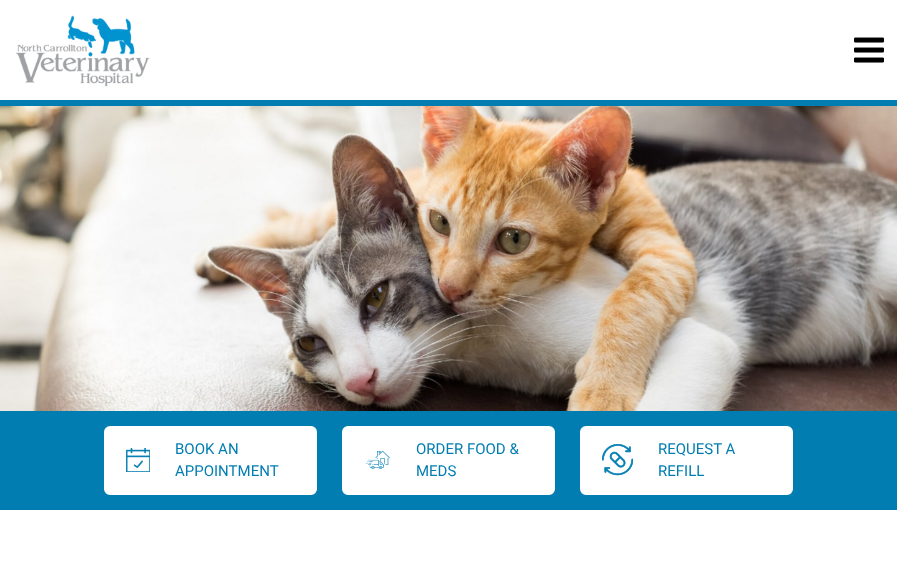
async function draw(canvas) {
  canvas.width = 897
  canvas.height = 566
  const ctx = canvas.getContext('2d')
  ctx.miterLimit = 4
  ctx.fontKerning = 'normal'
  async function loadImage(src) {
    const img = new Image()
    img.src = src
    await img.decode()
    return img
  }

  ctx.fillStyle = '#fff'
  ctx.fillRect(0, 0, 897, 566)
  ctx.fillStyle = '#017db2'
  ctx.fillRect(0, 100, 897, 6)
  ctx.drawImage(await loadImage('image0.png'), 15, 15, 135, 72)
  ctx.drawImage(await loadImage('image1.png'), 854, 37, 30, 26)
  ctx.drawImage(await loadImage('image2.png'), 0, 106, 897, 305)
  ctx.fillRect(0, 411, 897, 99)
  ctx.fillStyle = '#fff'
  ctx.beginPath()
  ctx.roundRect(105, 427, 211, 67, 5)
  ctx.fill()
  ctx.strokeStyle = '#fff'
  ctx.lineWidth = 2
  ctx.stroke()
  ctx.drawImage(await loadImage('image3.png'), 126, 448, 24, 24)
  ctx.font = '15px Roboto'
  ctx.fillStyle = '#017db2'
  ctx.fillText('BOOK AN', 175, 454)
  ctx.fillText('APPOINTMENT', 175, 476)
  ctx.fillStyle = '#fff'
  ctx.beginPath()
  ctx.roundRect(343, 427, 211, 67, 5)
  ctx.fill()
  ctx.stroke()
  ctx.fillStyle = '#017db2'
  ctx.fillText('ORDER FOOD &', 416, 454)
  ctx.drawImage(await loadImage('image4.png'), 366, 451, 24, 18)
  ctx.fillText('MEDS', 416, 476)
  ctx.fillStyle = '#fff'
  ctx.beginPath()
  ctx.roundRect(581, 427, 211, 67, 5)
  ctx.fill()
  ctx.stroke()
  ctx.drawImage(await loadImage('image5.png'), 602, 444, 31, 32)
  ctx.fillStyle = '#017db2'
  ctx.fillText('REQUEST A', 658, 454)
  ctx.fillText('REFILL', 658, 476)
}

draw(document.querySelector('canvas'))
